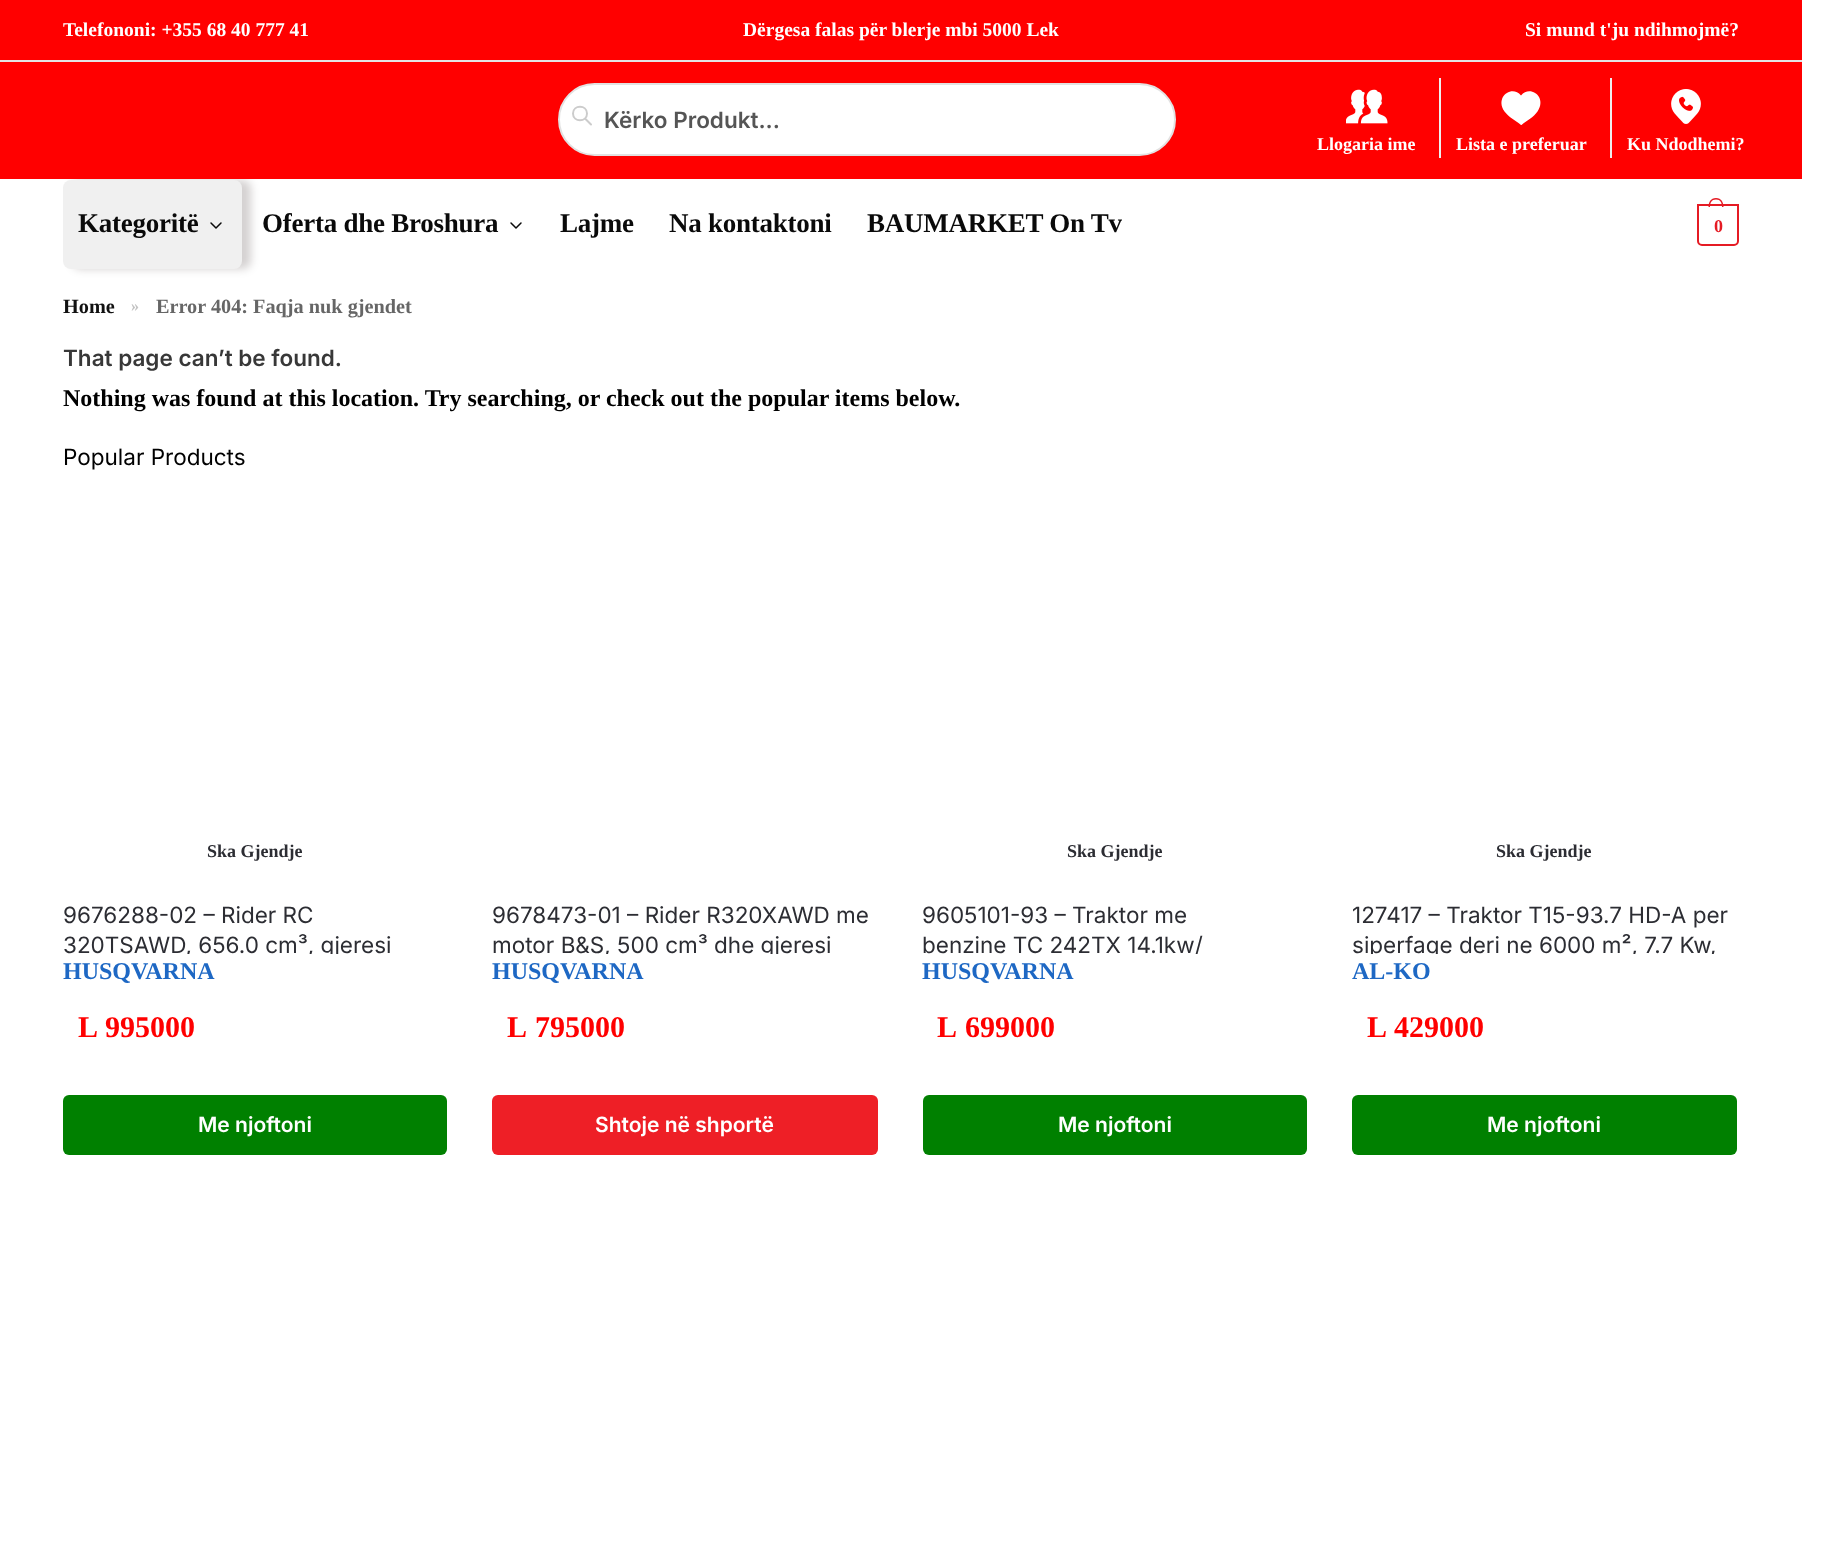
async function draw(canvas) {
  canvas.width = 1824
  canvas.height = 1552
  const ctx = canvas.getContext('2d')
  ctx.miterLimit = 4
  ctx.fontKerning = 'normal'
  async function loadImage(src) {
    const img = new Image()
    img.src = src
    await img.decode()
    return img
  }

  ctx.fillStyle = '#fff'
  ctx.fillRect(0, 0, 1824, 1552)
  ctx.fillStyle = '#f00'
  ctx.fillRect(0, 0, 1802, 60)
  ctx.fillStyle = '#e4e3e3'
  ctx.fillRect(0, 60, 1802, 2)
  ctx.font = 'bold 19.5px Liberation Serif'
  ctx.fillStyle = '#fff'
  ctx.fillText('Telefononi: +355 68 40 777 41', 63, 36)
  ctx.fillText('Dërgesa falas për blerje mbi 5000 Lek', 743, 36)
  ctx.fillText('Si mund t\'ju ndihmojmë?', 1525, 36)
  ctx.fillStyle = '#0f00002e'
  ctx.filter = 'blur(4.5px)'
  ctx.beginPath()
  ctx.roundRect(72, 180, 179, 89, 8)
  ctx.fill()
  ctx.filter = 'none'
  ctx.fillStyle = '#f00'
  ctx.fillRect(0, 62, 1802, 117)
  ctx.fillStyle = '#fff'
  ctx.beginPath()
  ctx.roundRect(559, 84, 616, 71, 35.5)
  ctx.fill()
  ctx.strokeStyle = '#e2e2e2'
  ctx.lineWidth = 2
  ctx.stroke()
  ctx.beginPath()
  ctx.moveTo(591, 124.5)
  ctx.lineTo(585, 118.5)
  ctx.moveTo(587, 113.5)
  ctx.bezierCurveTo(587, 122.5, 573, 122.5, 573, 113.5)
  ctx.bezierCurveTo(573, 104.5, 587, 104.5, 587, 113.5)
  ctx.closePath()
  ctx.strokeStyle = '#ccc'
  ctx.lineCap = 'round'
  ctx.lineJoin = 'round'
  ctx.stroke()
  ctx.font = '600 22.5px Inter'
  ctx.fillStyle = '#555'
  ctx.fillText('Kërko Produkt...', 604, 128)
  ctx.drawImage(await loadImage('image0.png'), 1346, 89, 42, 35)
  ctx.font = 'bold 18px Liberation Serif'
  ctx.fillStyle = '#fff'
  ctx.fillText('Llogaria ime', 1317, 150)
  ctx.fillStyle = '#eee'
  ctx.fillRect(1439, 78, 2, 80)
  ctx.fillStyle = '#fff'
  ctx.beginPath()
  ctx.moveTo(1521, 125)
  ctx.bezierCurveTo(1515.5, 120.5, 1509, 117.5, 1504.5, 111.5)
  ctx.bezierCurveTo(1494.5, 97, 1512, 84.5, 1521, 95.5)
  ctx.bezierCurveTo(1530, 84.5, 1547.5, 97, 1537.5, 111.5)
  ctx.bezierCurveTo(1533.5, 117.5, 1527, 120.5, 1521.5, 125)
  ctx.closePath()
  ctx.fill()
  ctx.fillText('Lista e preferuar', 1456, 150)
  ctx.fillStyle = '#eee'
  ctx.fillRect(1610, 78, 2, 80)
  ctx.drawImage(await loadImage('image1.png'), 1671, 89, 30, 35)
  ctx.fillStyle = '#fff'
  ctx.fillText('Ku Ndodhemi?', 1627, 150)
  ctx.fillStyle = '#f0f0f0'
  ctx.beginPath()
  ctx.roundRect(63, 180, 179, 89, 8)
  ctx.fill()
  ctx.letterSpacing = '-0.25px'
  ctx.font = 'bold 27px Liberation Serif'
  ctx.fillStyle = '#0a0a0a'
  ctx.fillText('Kategoritë', 78, 232)
  ctx.beginPath()
  ctx.moveTo(221, 223)
  ctx.lineTo(216, 228)
  ctx.lineTo(211, 223)
  ctx.strokeStyle = '#0a0a0a'
  ctx.lineWidth = 1.5
  ctx.stroke()
  ctx.fillText('Oferta dhe Broshura', 262, 232)
  ctx.beginPath()
  ctx.moveTo(521, 223)
  ctx.lineTo(516, 228)
  ctx.lineTo(511, 223)
  ctx.stroke()
  ctx.fillText('Lajme', 560, 232)
  ctx.fillText('Na kontaktoni', 669, 232)
  ctx.fillText('BAUMARKET On Tv', 867, 232)
  ctx.beginPath()
  ctx.roundRect(1698, 205, 40, 40, [0, 0, 4, 4])
  ctx.strokeStyle = '#e51b24'
  ctx.lineWidth = 2
  ctx.lineJoin = 'miter'
  ctx.stroke()
  ctx.fillStyle = '#e51b24'
  ctx.beginPath()
  ctx.moveTo(1716, 198)
  ctx.bezierCurveTo(1721.5, 198, 1723.5, 202.5, 1723.5, 207)
  ctx.lineTo(1708.5, 207)
  ctx.bezierCurveTo(1708.5, 202.5, 1710.5, 198, 1716, 198)
  ctx.closePath()
  ctx.moveTo(1716, 199.5)
  ctx.bezierCurveTo(1720.5, 199.5, 1722, 203, 1722, 207)
  ctx.lineTo(1710, 207)
  ctx.bezierCurveTo(1710, 203, 1711.5, 199.5, 1716, 199.5)
  ctx.closePath()
  ctx.fill('evenodd')
  ctx.letterSpacing = '-1px'
  ctx.font = 'bold 18px Liberation Serif'
  ctx.fillText('0', 1714, 232)
  ctx.letterSpacing = '0px'
  ctx.font = 'bold 20.25px Liberation Serif'
  ctx.fillStyle = '#111'
  ctx.fillText('Home', 63, 313)
  ctx.font = 'bold 16px Liberation Serif'
  ctx.fillStyle = '#c2c2c2'
  ctx.fillText('»', 131, 311)
  ctx.font = 'bold 20.25px Liberation Serif'
  ctx.fillStyle = '#666'
  ctx.fillText('Error 404: Faqja nuk gjendet', 156, 313)
  ctx.font = '600 22.5px Inter'
  ctx.fillStyle = '#383838'
  ctx.fillText('That page can’t be found.', 63, 366)
  ctx.font = 'bold 24px Liberation Serif'
  ctx.fillStyle = '#000'
  ctx.fillText('Nothing was found at this location. Try searching, or check out the popular items below.', 63, 406)
  ctx.font = '22.5px Inter'
  ctx.fillText('Popular Products', 63, 465)
  ctx.font = 'bold 18px Liberation Serif'
  ctx.fillStyle = '#2c2d33'
  ctx.fillText('Ska Gjendje', 207, 857)
  ctx.font = '22.5px Inter'
  ctx.fillText('9676288-02 – Rider RC', 63, 923)
  ctx.save()
  ctx.beginPath()
  ctx.rect(63, 896, 384, 58)
  ctx.clip()
  ctx.fillText('320TSAWD, 656.0 cm³, gjeresi', 63, 953)
  ctx.restore()
  ctx.font = 'bold 24px Liberation Serif'
  ctx.fillStyle = '#1e68c4'
  ctx.fillText('HUSQVARNA', 63, 979)
  ctx.font = 'bold 30px Liberation Serif'
  ctx.fillStyle = '#f00'
  ctx.fillText('L', 78, 1037)
  ctx.fillText('995000', 105, 1037)
  ctx.fillStyle = '#008000'
  ctx.beginPath()
  ctx.roundRect(63, 1095, 384, 60, 6)
  ctx.fill()
  ctx.font = '600 21px Inter'
  ctx.fillStyle = '#fff'
  ctx.fillText('Me njoftoni', 198, 1132)
  ctx.font = '22.5px Inter'
  ctx.fillStyle = '#2c2d33'
  ctx.fillText('9678473-01 – Rider R320XAWD me', 492, 923)
  ctx.save()
  ctx.beginPath()
  ctx.rect(492, 896, 386, 58)
  ctx.clip()
  ctx.fillText('motor B&S, 500 cm³ dhe gjeresi', 492, 953)
  ctx.restore()
  ctx.font = 'bold 24px Liberation Serif'
  ctx.fillStyle = '#1e68c4'
  ctx.fillText('HUSQVARNA', 492, 979)
  ctx.font = 'bold 30px Liberation Serif'
  ctx.fillStyle = '#f00'
  ctx.fillText('L', 507, 1037)
  ctx.fillText('795000', 535, 1037)
  ctx.fillStyle = '#ee1f26'
  ctx.beginPath()
  ctx.roundRect(492, 1095, 386, 60, 6)
  ctx.fill()
  ctx.font = '600 21px Inter'
  ctx.fillStyle = '#fff'
  ctx.fillText('Shtoje në shportë', 595, 1132)
  ctx.font = 'bold 18px Liberation Serif'
  ctx.fillStyle = '#2c2d33'
  ctx.fillText('Ska Gjendje', 1067, 857)
  ctx.font = '22.5px Inter'
  ctx.fillText('9605101-93 – Traktor me', 922, 923)
  ctx.save()
  ctx.beginPath()
  ctx.rect(923, 896, 384, 58)
  ctx.clip()
  ctx.fillText('benzine TC 242TX 14.1kw/', 922, 953)
  ctx.restore()
  ctx.font = 'bold 24px Liberation Serif'
  ctx.fillStyle = '#1e68c4'
  ctx.fillText('HUSQVARNA', 922, 979)
  ctx.font = 'bold 30px Liberation Serif'
  ctx.fillStyle = '#f00'
  ctx.fillText('L', 937, 1037)
  ctx.fillText('699000', 965, 1037)
  ctx.fillStyle = '#008000'
  ctx.beginPath()
  ctx.roundRect(923, 1095, 384, 60, 6)
  ctx.fill()
  ctx.font = '600 21px Inter'
  ctx.fillStyle = '#fff'
  ctx.fillText('Me njoftoni', 1058, 1132)
  ctx.font = 'bold 18px Liberation Serif'
  ctx.fillStyle = '#2c2d33'
  ctx.fillText('Ska Gjendje', 1496, 857)
  ctx.font = '22.5px Inter'
  ctx.fillText('127417 – Traktor T15-93.7 HD-A per', 1352, 923)
  ctx.save()
  ctx.beginPath()
  ctx.rect(1352, 896, 385, 58)
  ctx.clip()
  ctx.fillText('siperfaqe deri ne 6000 m², 7.7 Kw,', 1352, 953)
  ctx.restore()
  ctx.font = 'bold 24px Liberation Serif'
  ctx.fillStyle = '#1e68c4'
  ctx.fillText('AL-KO', 1352, 979)
  ctx.font = 'bold 30px Liberation Serif'
  ctx.fillStyle = '#f00'
  ctx.fillText('L', 1367, 1037)
  ctx.fillText('429000', 1394, 1037)
  ctx.fillStyle = '#008000'
  ctx.beginPath()
  ctx.roundRect(1352, 1095, 385, 60, 6)
  ctx.fill()
  ctx.font = '600 21px Inter'
  ctx.fillStyle = '#fff'
  ctx.fillText('Me njoftoni', 1487, 1132)
}

draw(document.querySelector('canvas'))
